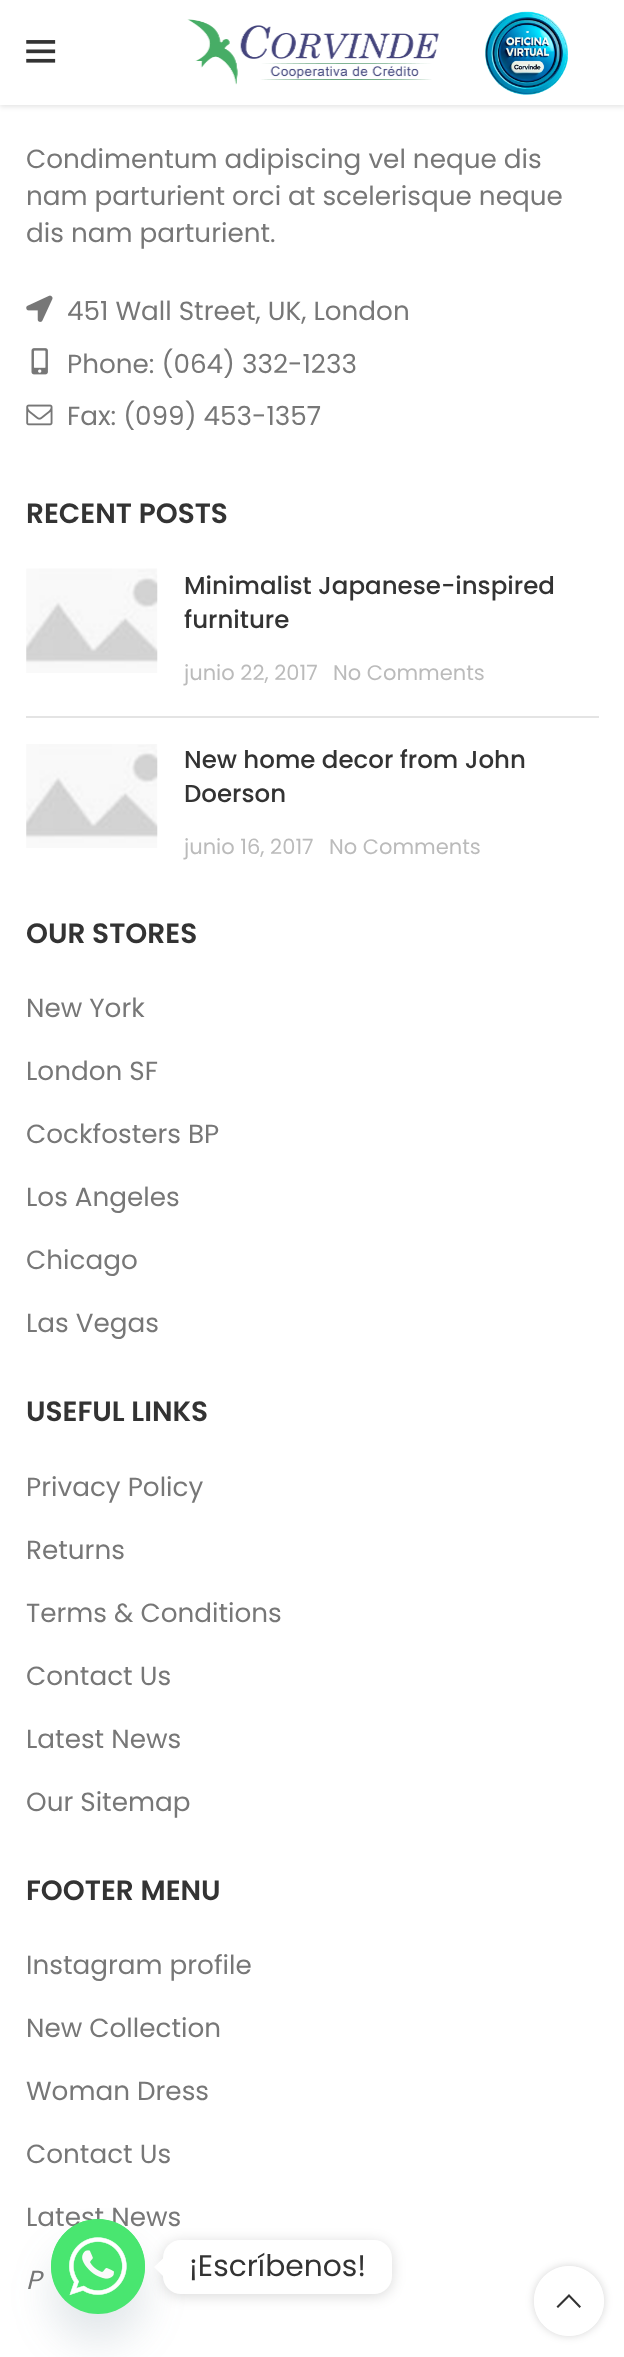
async function draw(canvas) {
  canvas.width = 624
  canvas.height = 2357
  const ctx = canvas.getContext('2d')
  ctx.miterLimit = 4
  ctx.fontKerning = 'normal'
  async function loadImage(src) {
    const img = new Image()
    img.src = src
    await img.decode()
    return img
  }

  ctx.fillStyle = '#fff'
  ctx.fillRect(0, 0, 624, 2357)
  ctx.fillStyle = '#0000001a'
  ctx.filter = 'blur(2.5px)'
  ctx.beginPath()
  ctx.rect(0, 2, 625, 105)
  ctx.fill()
  ctx.filter = 'none'
  ctx.fillStyle = '#fff'
  ctx.fillRect(0, 0, 624, 105)
  ctx.drawImage(await loadImage('image0.png'), 26, 40, 30, 23)
  ctx.drawImage(await loadImage('image1.png'), 187, 19, 252, 66)
  ctx.drawImage(await loadImage('image2.png'), 485, 11, 83, 84)
  ctx.font = '26.25px Poppins'
  ctx.fillStyle = '#777'
  ctx.fillText('Condimentum adipiscing vel neque dis', 26, 168)
  ctx.fillText('nam parturient orci at scelerisque neque', 26, 205)
  ctx.fillText('dis nam parturient.', 26, 242)
  ctx.drawImage(await loadImage('image3.png'), 26, 295, 27, 27)
  ctx.fillText('451 Wall Street, UK, London', 67, 320)
  ctx.drawImage(await loadImage('image4.png'), 31, 348, 17, 27)
  ctx.fillText('Phone: (064) 332-1233', 67, 373)
  ctx.drawImage(await loadImage('image5.png'), 26, 404, 27, 22)
  ctx.fillText('Fax: (099) 453-1357', 67, 425)
  ctx.font = '600 28px Poppins'
  ctx.fillStyle = '#333'
  ctx.fillText('RECENT POSTS', 26, 523)
  ctx.fillStyle = '#e4e4e4'
  ctx.fillRect(26, 716, 573, 2)
  ctx.drawImage(await loadImage('image6.png'), 26, 568, 132, 105)
  ctx.font = '500 24.5px Poppins'
  ctx.fillStyle = '#333'
  ctx.fillText('Minimalist Japanese-inspired', 184, 594)
  ctx.fillText('furniture', 184, 628)
  ctx.font = '21px Poppins'
  ctx.fillStyle = '#bbb'
  ctx.fillText('junio 22, 2017', 184, 680)
  ctx.fillText('No Comments', 333, 680)
  ctx.drawImage(await loadImage('image7.png'), 26, 744, 132, 104)
  ctx.font = '500 24.5px Poppins'
  ctx.fillStyle = '#333'
  ctx.fillText('New home decor from John', 184, 768)
  ctx.fillText('Doerson', 184, 802)
  ctx.font = '21px Poppins'
  ctx.fillStyle = '#bbb'
  ctx.fillText('junio 16, 2017', 184, 854)
  ctx.fillText('No Comments', 329, 854)
  ctx.font = '600 28px Poppins'
  ctx.fillStyle = '#333'
  ctx.fillText('OUR STORES', 26, 943)
  ctx.font = '26.25px Poppins'
  ctx.fillStyle = '#777'
  ctx.fillText('New York', 26, 1017)
  ctx.fillText('London SF', 26, 1080)
  ctx.fillText('Cockfosters BP', 26, 1143)
  ctx.fillText('Los Angeles', 26, 1206)
  ctx.fillText('Chicago', 26, 1269)
  ctx.fillText('Las Vegas', 26, 1332)
  ctx.font = '600 28px Poppins'
  ctx.fillStyle = '#333'
  ctx.fillText('USEFUL LINKS', 26, 1421)
  ctx.font = '26.25px Poppins'
  ctx.fillStyle = '#777'
  ctx.fillText('Privacy Policy', 26, 1496)
  ctx.fillText('Returns', 26, 1559)
  ctx.fillText('Terms & Conditions', 26, 1622)
  ctx.fillText('Contact Us', 26, 1685)
  ctx.fillText('Latest News', 26, 1748)
  ctx.fillText('Our Sitemap', 26, 1811)
  ctx.font = '600 28px Poppins'
  ctx.fillStyle = '#333'
  ctx.fillText('FOOTER MENU', 26, 1900)
  ctx.font = '26.25px Poppins'
  ctx.fillStyle = '#777'
  ctx.fillText('Instagram profile', 26, 1974)
  ctx.fillText('New Collection', 26, 2037)
  ctx.fillText('Woman Dress', 26, 2100)
  ctx.fillText('Contact Us', 26, 2163)
  ctx.fillText('Latest News', 26, 2226)
  ctx.font = 'italic 26.25px Poppins'
  ctx.fillText('P', 26, 2289)
  ctx.fillStyle = '#49687e29'
  ctx.filter = 'blur(21px)'
  ctx.beginPath()
  ctx.roundRect(51, 2247, 94, 95, 47)
  ctx.fill()
  ctx.filter = 'none'
  ctx.fillStyle = '#49e670'
  ctx.beginPath()
  ctx.roundRect(51, 2219, 94, 95, 47)
  ctx.fill()
  ctx.drawImage(await loadImage('image8.png'), 51, 2219, 94, 77)
  ctx.fillStyle = '#00000026'
  ctx.filter = 'blur(7px)'
  ctx.beginPath()
  ctx.roundRect(163, 2242, 229, 54, 18)
  ctx.fill()
  ctx.filter = 'none'
  ctx.fillStyle = '#fff'
  ctx.beginPath()
  ctx.roundRect(163, 2240, 229, 54, 18)
  ctx.fill()
  ctx.beginPath()
  ctx.moveTo(163, 2258.5)
  ctx.lineTo(163, 2276)
  ctx.lineTo(154, 2267)
  ctx.closePath()
  ctx.fill()
  ctx.font = '29.75px Poppins'
  ctx.fillStyle = '#333'
  ctx.fillText('¡Escríbenos!', 189, 2276)
  ctx.save()
  ctx.beginPath()
  ctx.moveTo(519, 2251)
  ctx.lineTo(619, 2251)
  ctx.lineTo(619, 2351)
  ctx.lineTo(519, 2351)
  ctx.closePath()
  ctx.moveTo(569, 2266)
  ctx.bezierCurveTo(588.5, 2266, 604, 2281.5, 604, 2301)
  ctx.bezierCurveTo(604, 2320.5, 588.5, 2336, 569, 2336)
  ctx.bezierCurveTo(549.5, 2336, 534, 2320.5, 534, 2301)
  ctx.bezierCurveTo(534, 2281.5, 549.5, 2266, 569, 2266)
  ctx.closePath()
  ctx.clip('evenodd')
  ctx.fillStyle = '#0000002b'
  ctx.filter = 'blur(4.5px)'
  ctx.beginPath()
  ctx.roundRect(534, 2266, 70, 70, 35)
  ctx.fill()
  ctx.filter = 'none'
  ctx.restore()
  ctx.fillStyle = '#ffffffe6'
  ctx.beginPath()
  ctx.arc(569, 2301, 35, 0, 2 * Math.PI)
  ctx.fill()
  ctx.fillStyle = '#333'
  ctx.beginPath()
  ctx.moveTo(569, 2294)
  ctx.lineTo(581, 2306.5)
  ctx.lineTo(579.5, 2308)
  ctx.lineTo(569, 2297)
  ctx.lineTo(558, 2308)
  ctx.lineTo(556.5, 2306.5)
  ctx.closePath()
  ctx.fill()
}

draw(document.querySelector('canvas'))
